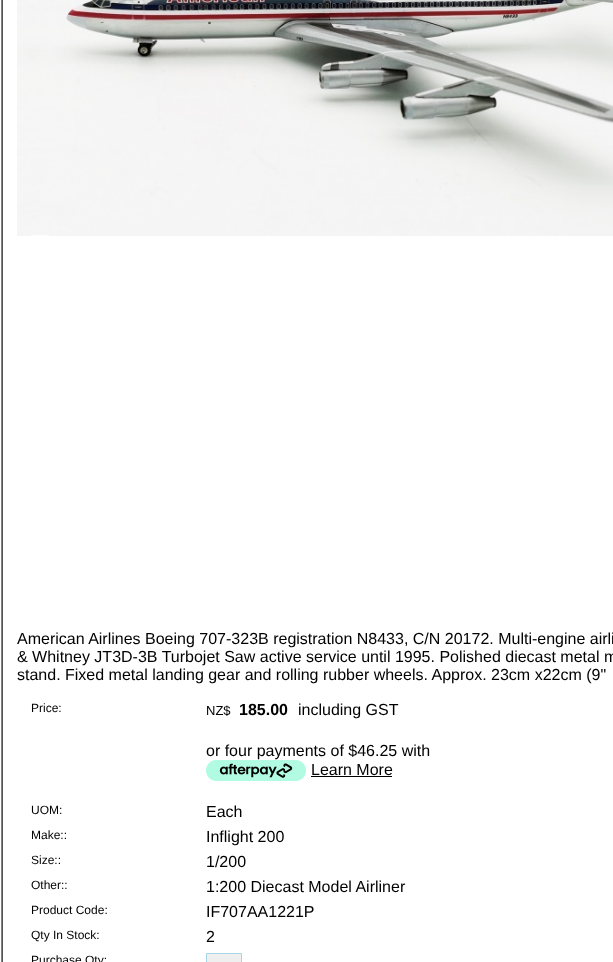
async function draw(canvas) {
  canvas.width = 613
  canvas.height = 962
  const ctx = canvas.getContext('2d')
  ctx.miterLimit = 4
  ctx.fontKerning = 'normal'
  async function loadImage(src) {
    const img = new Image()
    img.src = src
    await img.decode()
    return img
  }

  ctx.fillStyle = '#fff'
  ctx.fillRect(0, 0, 613, 962)
  ctx.fillStyle = '#808080'
  ctx.fillRect(1, 0, 1, 962)
  ctx.fillStyle = '#555'
  ctx.fillRect(2, 0, 1, 962)
  ctx.drawImage(await loadImage('image0.png'), 17, 0, 596, 236)
  ctx.font = '16px Liberation Sans'
  ctx.fillStyle = '#000'
  ctx.fillText('American Airlines Boeing 707-323B registration N8433, C/N 20172. Multi-engine airli', 17, 644)
  ctx.fillText('& Whitney JT3D-3B Turbojet Saw active service until 1995. Polished diecast metal m', 17, 662)
  ctx.fillText('stand. Fixed metal landing gear and rolling rubber wheels. Approx. 23cm x22cm (9"', 17, 680)
  ctx.font = '12px Liberation Sans'
  ctx.fillText('Price:', 31, 712)
  ctx.font = '13px Liberation Sans'
  ctx.fillText('NZ$', 206, 715)
  ctx.font = 'bold 16px Liberation Sans'
  ctx.fillText('185.00', 239, 715)
  ctx.font = '16px Liberation Sans'
  ctx.fillText('including GST', 298, 715)
  ctx.fillText('or four payments of $46.25 with', 206, 756)
  ctx.drawImage(await loadImage('image1.png'), 206, 760, 100, 21)
  ctx.fillText('Learn More', 311, 775)
  ctx.fillRect(311, 776, 81, 1)
  ctx.font = '12px Liberation Sans'
  ctx.fillText('UOM:', 31, 814)
  ctx.font = '16px Liberation Sans'
  ctx.fillText('Each', 206, 817)
  ctx.font = '12px Liberation Sans'
  ctx.fillText('Make::', 31, 839)
  ctx.font = '16px Liberation Sans'
  ctx.fillText('Inflight 200', 206, 842)
  ctx.font = '12px Liberation Sans'
  ctx.fillText('Size::', 31, 864)
  ctx.font = '16px Liberation Sans'
  ctx.fillText('1/200', 206, 867)
  ctx.font = '12px Liberation Sans'
  ctx.fillText('Other::', 31, 889)
  ctx.font = '16px Liberation Sans'
  ctx.fillText('1:200 Diecast Model Airliner', 206, 892)
  ctx.font = '12px Liberation Sans'
  ctx.fillText('Product Code:', 31, 914)
  ctx.font = '16px Liberation Sans'
  ctx.fillText('IF707AA1221P', 206, 917)
  ctx.font = '12px Liberation Sans'
  ctx.fillText('Qty In Stock:', 31, 939)
  ctx.font = '16px Liberation Sans'
  ctx.fillText('2', 206, 942)
  ctx.font = '12px Liberation Sans'
  ctx.fillText('Purchase Qty:', 31, 964)
  ctx.fillStyle = '#efefef'
  ctx.beginPath()
  ctx.rect(206.5, 953.5, 35, 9)
  ctx.fill()
  ctx.strokeStyle = '#aad5e6'
  ctx.stroke()
}

draw(document.querySelector('canvas'))
